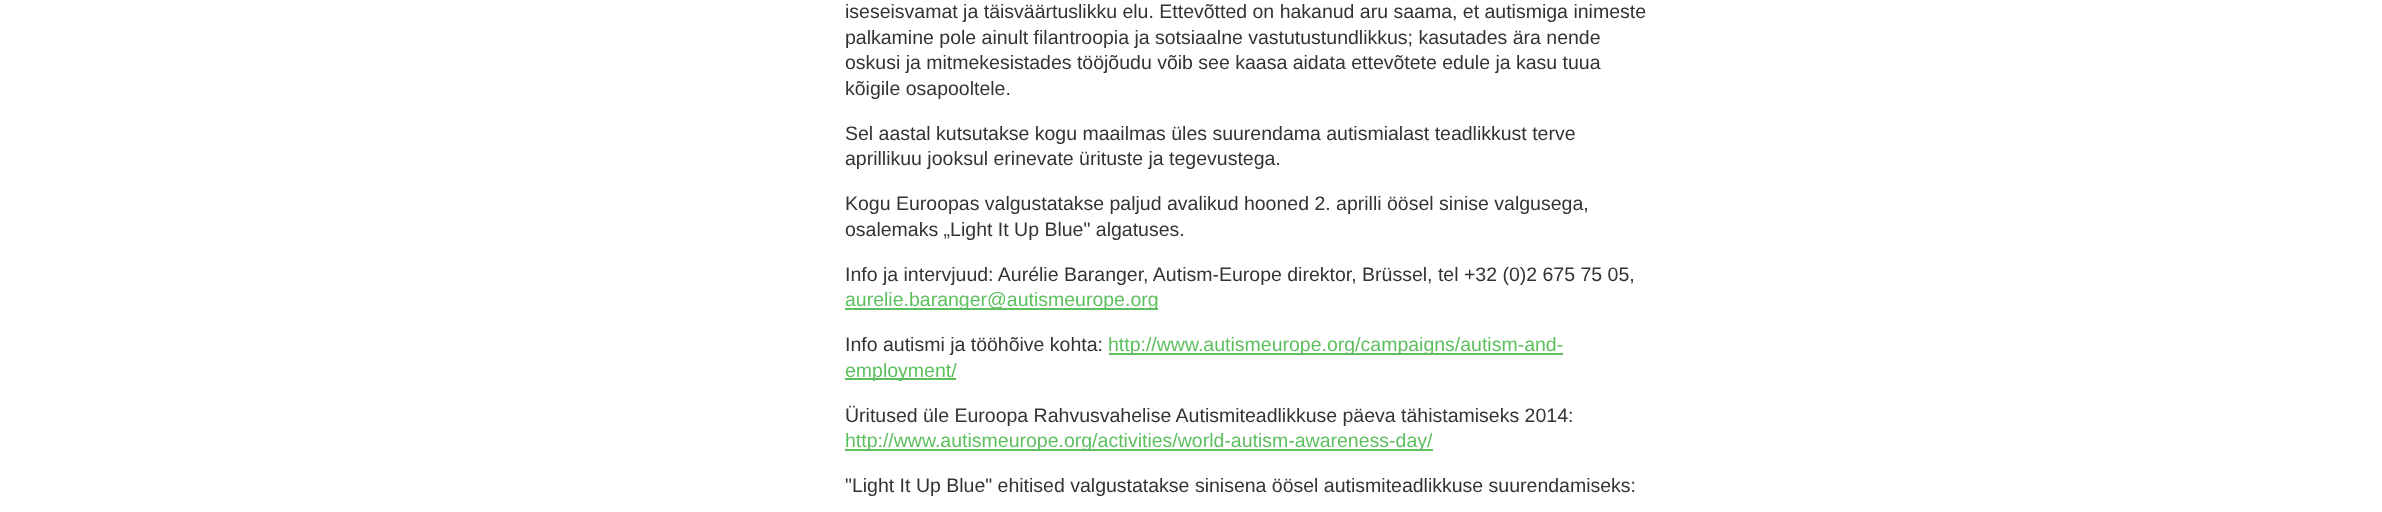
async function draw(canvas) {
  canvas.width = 2382
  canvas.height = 512
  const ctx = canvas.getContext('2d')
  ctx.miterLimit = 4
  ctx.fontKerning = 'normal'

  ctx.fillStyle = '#fff'
  ctx.fillRect(0, 0, 2382, 512)
  ctx.font = '19.5px Liberation Sans'
  ctx.fillStyle = '#333'
  ctx.fillText('iseseisvamat ja täisväärtuslikku elu. Ettevõtted on hakanud aru saama, et autismiga inimeste', 845, 18)
  ctx.fillText('palkamine pole ainult filantroopia ja sotsiaalne vastutustundlikkus; kasutades ära nende', 845, 44)
  ctx.fillText('oskusi ja mitmekesistades tööjõudu võib see kaasa aidata ettevõtete edule ja kasu tuua', 845, 69)
  ctx.fillText('kõigile osapooltele.', 845, 95)
  ctx.fillText('Sel aastal kutsutakse kogu maailmas üles suurendama autismialast teadlikkust terve', 845, 140)
  ctx.fillText('aprillikuu jooksul erinevate ürituste ja tegevustega.', 845, 165)
  ctx.fillText('Kogu Euroopas valgustatakse paljud avalikud hooned 2. aprilli öösel sinise valgusega,', 845, 210)
  ctx.fillText('osalemaks „Light It Up Blue" algatuses.', 845, 236)
  ctx.fillText('Info ja intervjuud: Aurélie Baranger, Autism-Europe direktor, Brüssel, tel +32 (0)2 675 75 05,', 845, 281)
  ctx.fillStyle = '#5dbf5d'
  ctx.fillRect(845, 308, 313, 2)
  ctx.fillText('aurelie.baranger@autismeurope.org', 845, 306)
  ctx.fillStyle = '#333'
  ctx.fillText('Info autismi ja tööhõive kohta:', 845, 351)
  ctx.fillStyle = '#5dbf5d'
  ctx.fillRect(1109, 353, 454, 2)
  ctx.fillText('http://www.autismeurope.org/campaigns/autism-and-', 1108, 351)
  ctx.fillRect(845, 378, 111, 2)
  ctx.fillText('employment/', 845, 377)
  ctx.fillStyle = '#333'
  ctx.fillText('Üritused üle Euroopa Rahvusvahelise Autismiteadlikkuse päeva tähistamiseks 2014:', 845, 422)
  ctx.fillStyle = '#5dbf5d'
  ctx.fillRect(845, 449, 588, 2)
  ctx.fillText('http://www.autismeurope.org/activities/world-autism-awareness-day/', 845, 447)
  ctx.fillStyle = '#333'
  ctx.fillText('"Light It Up Blue" ehitised valgustatakse sinisena öösel autismiteadlikkuse suurendamiseks:', 845, 492)
}

draw(document.querySelector('canvas'))
